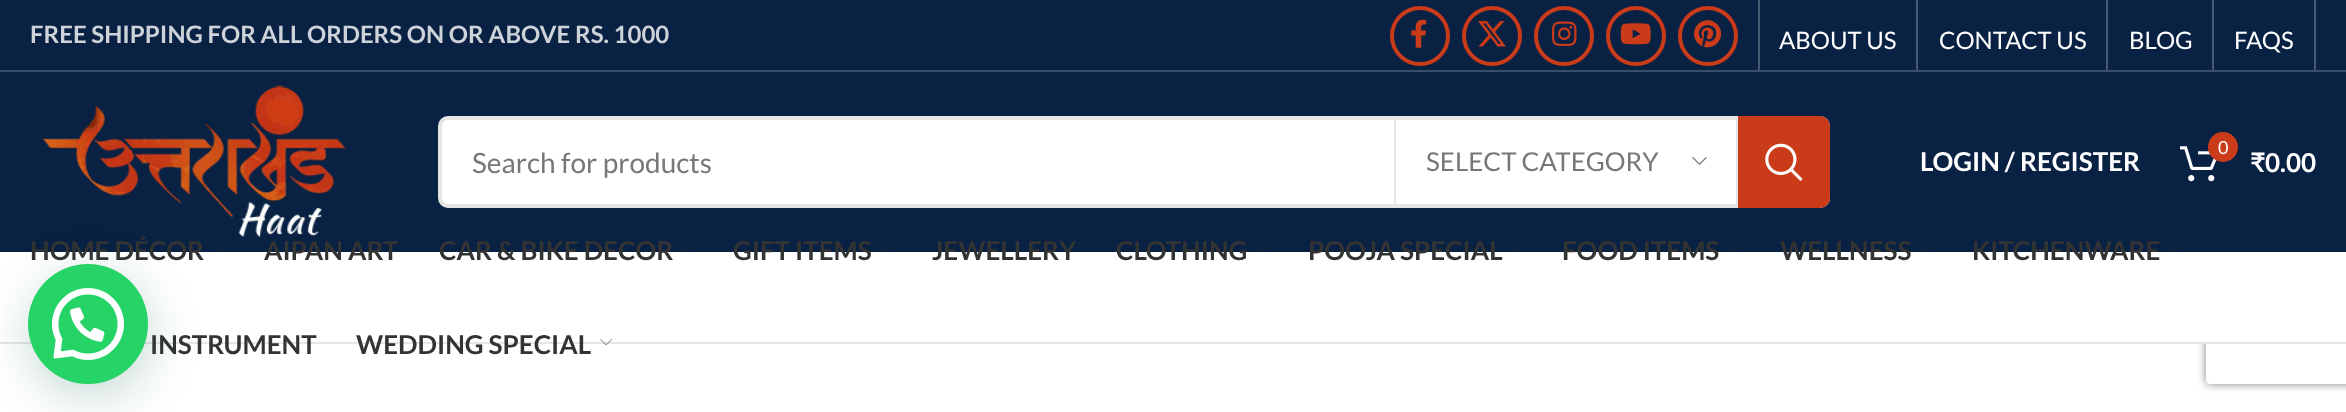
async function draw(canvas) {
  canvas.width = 2346
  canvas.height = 412
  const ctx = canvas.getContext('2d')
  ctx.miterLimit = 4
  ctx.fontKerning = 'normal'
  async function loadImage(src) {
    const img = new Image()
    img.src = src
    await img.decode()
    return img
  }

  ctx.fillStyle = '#fff'
  ctx.fillRect(0, 0, 2346, 412)
  ctx.fillStyle = '#092143'
  ctx.fillRect(0, 0, 2346, 70)
  ctx.fillStyle = '#3a4d69'
  ctx.fillRect(0, 70, 2346, 2)
  ctx.font = 'bold 24px Lato'
  ctx.fillStyle = '#ced3d9'
  ctx.fillText('FREE SHIPPING FOR ALL ORDERS ON OR ABOVE RS. 1000', 30, 43)
  ctx.beginPath()
  ctx.arc(1420, 36, 28, 0, 2 * Math.PI)
  ctx.strokeStyle = '#c93b19'
  ctx.lineWidth = 4
  ctx.stroke()
  ctx.drawImage(await loadImage('image0.png'), 1411, 19, 16, 29)
  ctx.beginPath()
  ctx.arc(1492, 36, 28, 0, 2 * Math.PI)
  ctx.stroke()
  ctx.drawImage(await loadImage('image1.png'), 1478, 21, 28, 26)
  ctx.beginPath()
  ctx.arc(1564, 36, 28, 0, 2 * Math.PI)
  ctx.stroke()
  ctx.drawImage(await loadImage('image2.png'), 1552, 21, 25, 25)
  ctx.beginPath()
  ctx.arc(1636, 36, 28, 0, 2 * Math.PI)
  ctx.stroke()
  ctx.drawImage(await loadImage('image3.png'), 1620, 23, 31, 22)
  ctx.beginPath()
  ctx.arc(1708, 36, 28, 0, 2 * Math.PI)
  ctx.stroke()
  ctx.drawImage(await loadImage('image4.png'), 1694, 20, 28, 28)
  ctx.fillStyle = '#475972'
  ctx.fillRect(1758, 0, 2, 70)
  ctx.font = '24px Lato'
  ctx.fillStyle = '#fff'
  ctx.fillText('ABOUT US', 1779, 49)
  ctx.fillStyle = '#475972'
  ctx.fillRect(1916, 0, 2, 70)
  ctx.fillStyle = '#fff'
  ctx.fillText('CONTACT US', 1939, 49)
  ctx.fillStyle = '#475972'
  ctx.fillRect(2106, 0, 2, 70)
  ctx.fillStyle = '#fff'
  ctx.fillText('BLOG', 2129, 49)
  ctx.fillStyle = '#475972'
  ctx.fillRect(2212, 0, 2, 70)
  ctx.fillStyle = '#fff'
  ctx.fillText('FAQS', 2234, 49)
  ctx.fillStyle = '#475972'
  ctx.fillRect(2314, 0, 2, 70)
  ctx.save()
  ctx.beginPath()
  ctx.moveTo(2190, 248)
  ctx.lineTo(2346, 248)
  ctx.lineTo(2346, 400)
  ctx.lineTo(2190, 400)
  ctx.closePath()
  ctx.moveTo(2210, 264)
  ctx.lineTo(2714, 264)
  ctx.bezierCurveTo(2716, 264, 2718, 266, 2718, 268)
  ctx.lineTo(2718, 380)
  ctx.bezierCurveTo(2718, 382, 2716, 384, 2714, 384)
  ctx.lineTo(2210, 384)
  ctx.bezierCurveTo(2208, 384, 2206, 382, 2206, 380)
  ctx.lineTo(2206, 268)
  ctx.bezierCurveTo(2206, 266, 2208, 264, 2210, 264)
  ctx.closePath()
  ctx.clip('evenodd')
  ctx.fillStyle = '#808080'
  ctx.filter = 'blur(5px)'
  ctx.beginPath()
  ctx.roundRect(2206, 264, 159, 120, 4)
  ctx.fill()
  ctx.filter = 'none'
  ctx.restore()
  ctx.fillStyle = '#092143'
  ctx.fillRect(0, 72, 2346, 180)
  ctx.drawImage(await loadImage('image5.png'), 42, 85, 304, 152)
  ctx.fillStyle = '#fff'
  ctx.beginPath()
  ctx.roundRect(438, 116, 1392, 92, 10)
  ctx.fill()
  ctx.beginPath()
  ctx.roundRect(440, 118, 1388, 88, 8)
  ctx.strokeStyle = '#0000001a'
  ctx.stroke()
  ctx.font = '28px Lato'
  ctx.fillStyle = '#777'
  ctx.fillText('Search for products', 472, 173)
  ctx.fillStyle = '#e6e6e6'
  ctx.fillRect(1736, 120, 2, 84)
  ctx.fillRect(1394, 120, 2, 84)
  ctx.font = '26px Lato'
  ctx.fillStyle = '#777'
  ctx.fillText('SELECT CATEGORY', 1426, 171)
  ctx.drawImage(await loadImage('image6.png'), 1692, 157, 15, 8)
  ctx.fillStyle = '#c93b19'
  ctx.beginPath()
  ctx.roundRect(1738, 116, 92, 92, [0, 10, 10, 0])
  ctx.fill()
  ctx.drawImage(await loadImage('image7.png'), 1765, 143, 38, 38)
  ctx.font = 'bold 26px Lato'
  ctx.fillStyle = '#fff'
  ctx.fillText('LOGIN / REGISTER', 1920, 171)
  ctx.drawImage(await loadImage('image8.png'), 2180, 146, 37, 36)
  ctx.fillStyle = '#c93b19'
  ctx.beginPath()
  ctx.arc(2223, 147, 15, 0, 2 * Math.PI)
  ctx.fill()
  ctx.font = '18px Lato'
  ctx.fillStyle = '#fff'
  ctx.fillText('0', 2218, 154)
  ctx.font = 'bold 26px "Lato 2"'
  ctx.fillText('₹', 2250, 172)
  ctx.font = 'bold 26px Lato'
  ctx.fillText('0.00', 2265, 172)
  ctx.fillRect(2196, 254, 150, 88)
  ctx.fillStyle = '#e6e6e6'
  ctx.fillRect(0, 342, 2346, 2)
  ctx.fillStyle = '#333'
  ctx.fillText('HOME DÉCOR', 30, 260)
  ctx.drawImage(await loadImage('image9.png'), 212, 245, 12, 7)
  ctx.fillText('AIPAN ART', 264, 260)
  ctx.fillText('CAR & BIKE DECOR', 439, 260)
  ctx.drawImage(await loadImage('image9.png'), 680, 245, 12, 7)
  ctx.fillText('GIFT ITEMS', 733, 260)
  ctx.drawImage(await loadImage('image9.png'), 880, 245, 12, 7)
  ctx.fillText('JEWELLERY', 932, 260)
  ctx.fillText('CLOTHING', 1116, 260)
  ctx.drawImage(await loadImage('image9.png'), 1256, 245, 12, 7)
  ctx.fillText('POOJA SPECIAL', 1308, 260)
  ctx.drawImage(await loadImage('image9.png'), 1510, 245, 12, 7)
  ctx.fillText('FOOD ITEMS', 1562, 260)
  ctx.drawImage(await loadImage('image9.png'), 1728, 245, 12, 7)
  ctx.fillText('WELLNESS', 1780, 260)
  ctx.drawImage(await loadImage('image9.png'), 1920, 245, 12, 7)
  ctx.fillText('KITCHENWARE', 1972, 260)
  ctx.drawImage(await loadImage('image9.png'), 2168, 245, 12, 7)
  ctx.fillText('INSTRUMENT', 150, 354)
  ctx.fillText('WEDDING SPECIAL', 356, 354)
  ctx.drawImage(await loadImage('image10.png'), 600, 339, 12, 7)
  ctx.fillStyle = '#075e543d'
  ctx.filter = 'blur(24px)'
  ctx.beginPath()
  ctx.roundRect(30, 276, 120, 120, 60)
  ctx.fill()
  ctx.filter = 'none'
  ctx.fillStyle = '#25d366'
  ctx.beginPath()
  ctx.arc(88, 324, 60, 0, 2 * Math.PI)
  ctx.fill()
  ctx.drawImage(await loadImage('image11.png'), 52, 288, 72, 72)
}

draw(document.querySelector('canvas'))
